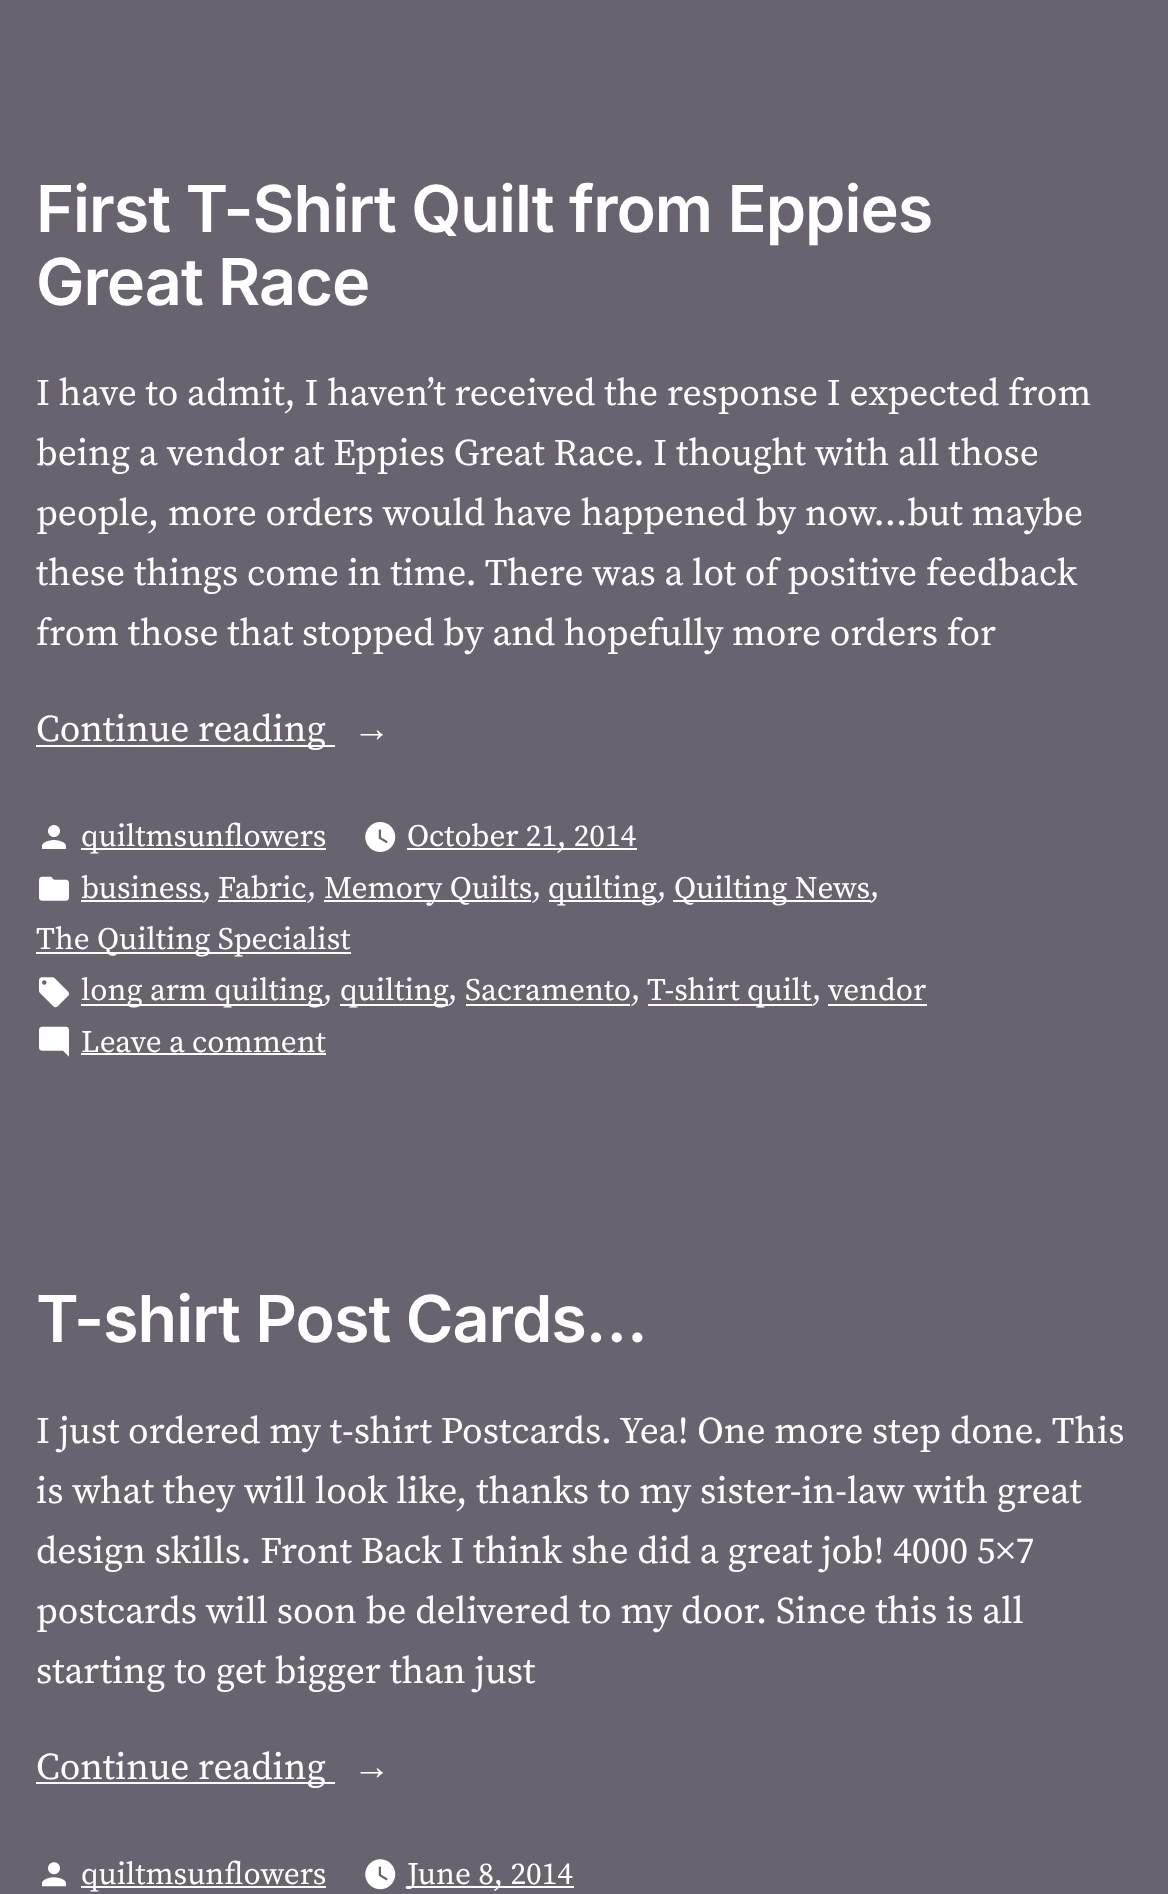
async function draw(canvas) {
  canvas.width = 1168
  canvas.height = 1894
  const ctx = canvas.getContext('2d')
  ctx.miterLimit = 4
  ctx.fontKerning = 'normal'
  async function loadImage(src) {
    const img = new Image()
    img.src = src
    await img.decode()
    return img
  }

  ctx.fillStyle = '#69636f'
  ctx.fillRect(0, 0, 1168, 1894)
  ctx.letterSpacing = '-1px'
  ctx.font = '600 64.75px Inter'
  ctx.fillStyle = '#fff'
  ctx.fillText('First T-Shirt Quilt from Eppies', 36, 232)
  ctx.fillText('Great Race', 36, 305)
  ctx.letterSpacing = '0px'
  ctx.font = '37.5px Source Serif Pro'
  ctx.fillText('I have to admit, I haven’t received the response I expected from', 36, 405)
  ctx.fillText('being a vendor at Eppies Great Race. I thought with all those', 36, 465)
  ctx.fillText('people, more orders would have happened by now…but maybe', 36, 525)
  ctx.fillText('these things come in time. There was a lot of positive feedback', 36, 585)
  ctx.fillText('from those that stopped by and hopefully more orders for', 36, 645)
  ctx.fillRect(36, 745, 299, 2)
  ctx.fillText('Continue reading', 36, 741)
  ctx.font = '37.5px Liberation Serif'
  ctx.fillText('→', 353, 741)
  ctx.drawImage(await loadImage('image0.png'), 42, 825, 24, 24)
  ctx.fillRect(81, 848, 245, 2)
  ctx.font = '31.25px Source Serif Pro'
  ctx.fillText('quiltmsunflowers', 81, 846)
  ctx.drawImage(await loadImage('image1.png'), 365, 822, 31, 30)
  ctx.fillRect(407, 848, 230, 2)
  ctx.fillText('October 21, 2014', 407, 846)
  ctx.drawImage(await loadImage('image2.png'), 39, 876, 30, 25)
  ctx.fillText('business', 81, 898)
  ctx.fillRect(81, 900, 122, 2)
  ctx.fillText(',', 202, 896)
  ctx.fillText('Fabric', 218, 898)
  ctx.fillRect(218, 900, 88, 2)
  ctx.fillText(',', 307, 896)
  ctx.fillRect(324, 900, 207, 2)
  ctx.fillText('Memory Quilts', 324, 898)
  ctx.fillText(',', 532, 896)
  ctx.fillRect(549, 900, 108, 2)
  ctx.fillText('quilting', 548, 898)
  ctx.fillText(',', 657, 896)
  ctx.fillRect(673, 900, 198, 2)
  ctx.fillText('Quilting News', 674, 898)
  ctx.fillText(',', 870, 896)
  ctx.fillRect(36, 952, 315, 2)
  ctx.fillText('The Quilting Specialist', 36, 949)
  ctx.drawImage(await loadImage('image3.png'), 39, 977, 30, 31)
  ctx.fillRect(81, 1004, 243, 2)
  ctx.fillText('long arm quilting', 81, 1000)
  ctx.fillText(',', 323, 999)
  ctx.fillRect(340, 1004, 108, 2)
  ctx.fillText('quilting', 340, 1000)
  ctx.fillText(',', 448, 999)
  ctx.fillText('Sacramento', 465, 1000)
  ctx.fillRect(466, 1004, 164, 2)
  ctx.fillText(',', 631, 999)
  ctx.fillRect(648, 1004, 164, 2)
  ctx.fillText('T-shirt quilt', 647, 1000)
  ctx.fillText(',', 812, 999)
  ctx.fillText('vendor', 828, 1000)
  ctx.fillRect(828, 1004, 99, 2)
  ctx.drawImage(await loadImage('image4.png'), 39, 1026, 30, 31)
  ctx.fillText('Leave a comment', 81, 1052)
  ctx.fillRect(81, 1053, 245, 2)
  ctx.letterSpacing = '-1px'
  ctx.font = '600 64.75px Inter'
  ctx.fillText('T-shirt Post Cards…', 36, 1342)
  ctx.letterSpacing = '0px'
  ctx.font = '37.5px Source Serif Pro'
  ctx.fillText('I just ordered my t-shirt Postcards. Yea! One more step done. This', 36, 1443)
  ctx.fillText('is what they will look like, thanks to my sister-in-law with great', 36, 1503)
  ctx.fillText('design skills. Front Back I think she did a great job! 4000 5×7', 36, 1563)
  ctx.fillText('postcards will soon be delivered to my door. Since this is all', 36, 1623)
  ctx.fillText('starting to get bigger than just', 36, 1683)
  ctx.fillRect(36, 1782, 299, 2)
  ctx.fillText('Continue reading', 36, 1779)
  ctx.font = '37.5px Liberation Serif'
  ctx.fillText('→', 353, 1779)
  ctx.drawImage(await loadImage('image5.png'), 42, 1862, 24, 25)
  ctx.fillRect(81, 1886, 245, 2)
  ctx.font = '31.25px Source Serif Pro'
  ctx.fillText('quiltmsunflowers', 81, 1884)
  ctx.drawImage(await loadImage('image6.png'), 365, 1859, 31, 31)
  ctx.fillRect(407, 1886, 167, 2)
  ctx.fillText('June 8, 2014', 407, 1884)
}

draw(document.querySelector('canvas'))
